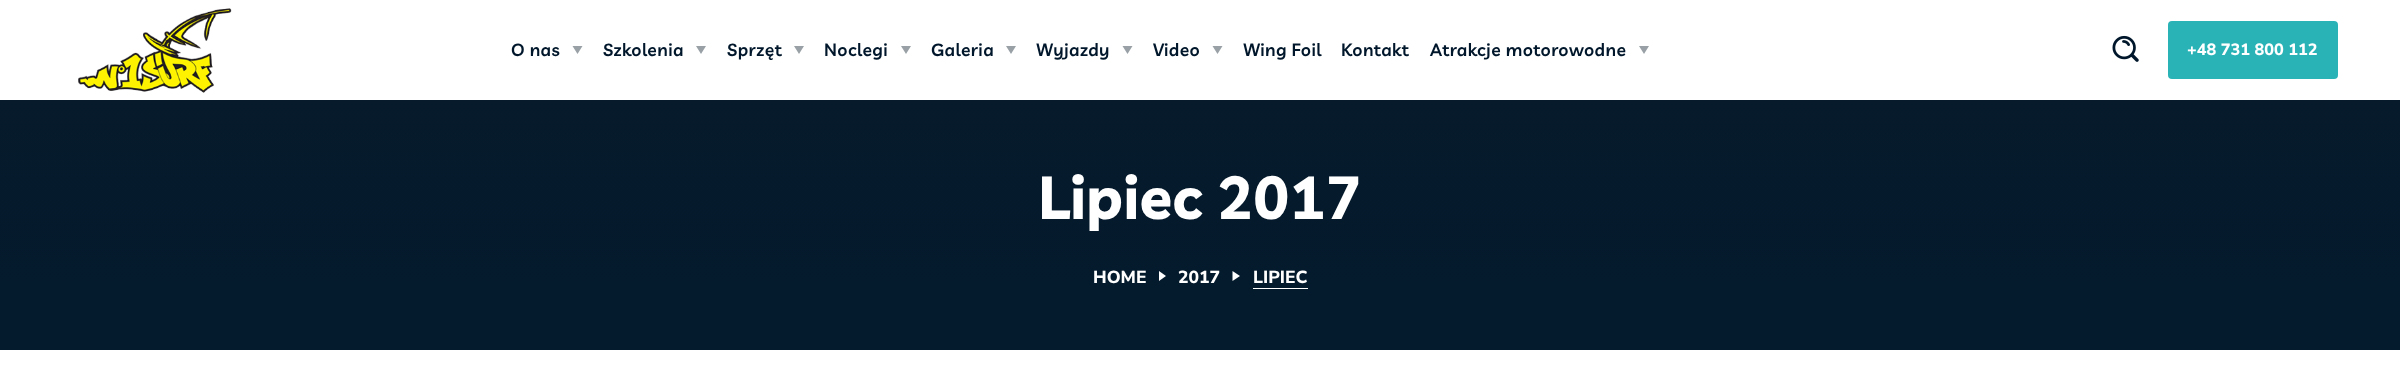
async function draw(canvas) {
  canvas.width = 2400
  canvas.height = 367
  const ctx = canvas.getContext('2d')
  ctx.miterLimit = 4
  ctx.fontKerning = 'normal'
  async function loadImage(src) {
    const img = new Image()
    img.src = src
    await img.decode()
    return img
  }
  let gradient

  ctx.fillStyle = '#fff'
  ctx.fillRect(0, 0, 2400, 367)
  ctx.drawImage(await loadImage('image0.png'), 78, 8, 154, 85)
  ctx.letterSpacing = '0.4px'
  ctx.font = '600 17.5px Livvic'
  ctx.fillStyle = '#00172b'
  ctx.fillText('O nas', 511, 56)
  ctx.fillStyle = '#99a1a7'
  ctx.beginPath()
  ctx.moveTo(572.5, 46)
  ctx.lineTo(582.5, 46)
  ctx.lineTo(577.5, 54)
  ctx.closePath()
  ctx.fill()
  ctx.fillStyle = '#00172b'
  ctx.fillText('Szkolenia', 603, 56)
  ctx.fillStyle = '#99a1a7'
  ctx.beginPath()
  ctx.moveTo(696, 46)
  ctx.lineTo(706, 46)
  ctx.lineTo(701, 54)
  ctx.closePath()
  ctx.fill()
  ctx.fillStyle = '#00172b'
  ctx.fillText('Sprzęt', 727, 56)
  ctx.fillStyle = '#99a1a7'
  ctx.beginPath()
  ctx.moveTo(794, 46)
  ctx.lineTo(804, 46)
  ctx.lineTo(799, 54)
  ctx.closePath()
  ctx.fill()
  ctx.fillStyle = '#00172b'
  ctx.fillText('Noclegi', 824, 56)
  ctx.fillStyle = '#99a1a7'
  ctx.beginPath()
  ctx.moveTo(901, 46)
  ctx.lineTo(911, 46)
  ctx.lineTo(906, 54)
  ctx.closePath()
  ctx.fill()
  ctx.fillStyle = '#00172b'
  ctx.fillText('Galeria', 931, 56)
  ctx.fillStyle = '#99a1a7'
  ctx.beginPath()
  ctx.moveTo(1006, 46)
  ctx.lineTo(1016, 46)
  ctx.lineTo(1011, 54)
  ctx.closePath()
  ctx.fill()
  ctx.fillStyle = '#00172b'
  ctx.fillText('Wyjazdy', 1036, 56)
  ctx.fillStyle = '#99a1a7'
  ctx.beginPath()
  ctx.moveTo(1122.5, 46)
  ctx.lineTo(1132.5, 46)
  ctx.lineTo(1127.5, 54)
  ctx.closePath()
  ctx.fill()
  ctx.fillStyle = '#00172b'
  ctx.fillText('Video', 1153, 56)
  ctx.fillStyle = '#99a1a7'
  ctx.beginPath()
  ctx.moveTo(1212.5, 46)
  ctx.lineTo(1222.5, 46)
  ctx.lineTo(1217.5, 54)
  ctx.closePath()
  ctx.fill()
  ctx.fillStyle = '#00172b'
  ctx.fillText('Wing Foil', 1243, 56)
  ctx.fillText('Kontakt', 1341, 56)
  ctx.fillText('Atrakcje motorowodne', 1430, 56)
  ctx.fillStyle = '#99a1a7'
  ctx.beginPath()
  ctx.moveTo(1639, 46)
  ctx.lineTo(1649, 46)
  ctx.lineTo(1644, 54)
  ctx.closePath()
  ctx.fill()
  ctx.drawImage(await loadImage('image1.png'), 2112, 35, 27, 27)
  ctx.fillStyle = '#29b3b7'
  ctx.beginPath()
  ctx.roundRect(2168, 21, 170, 58, 4)
  ctx.fill()
  ctx.letterSpacing = '0px'
  ctx.font = '800 16.25px Nunito Sans'
  ctx.fillStyle = '#fff'
  ctx.fillText('+48 731 800 112', 2187, 55)
  gradient = ctx.createLinearGradient(1200, 350, 1200, 100)
  gradient.addColorStop(0, '#041b2d')
  gradient.addColorStop(0.24, '#041b2d')
  gradient.addColorStop(1, '#061a2b')
  ctx.fillStyle = gradient
  ctx.fillRect(0, 100, 2400, 250)
  ctx.font = 'bold 60px Livvic'
  ctx.fillStyle = '#fff'
  ctx.fillText('Lipiec 2017', 1038, 219)
  ctx.font = '800 17.5px Nunito Sans'
  ctx.fillText('HOME', 1093, 283)
  ctx.beginPath()
  ctx.moveTo(1159, 281)
  ctx.lineTo(1159, 271)
  ctx.lineTo(1166, 276)
  ctx.closePath()
  ctx.fill()
  ctx.fillText('2017', 1178, 283)
  ctx.beginPath()
  ctx.moveTo(1232.5, 281)
  ctx.lineTo(1232.5, 271)
  ctx.lineTo(1240, 276)
  ctx.closePath()
  ctx.fill()
  ctx.fillText('LIPIEC', 1253, 283)
  ctx.fillRect(1253, 288, 55, 1)
}

draw(document.querySelector('canvas'))
